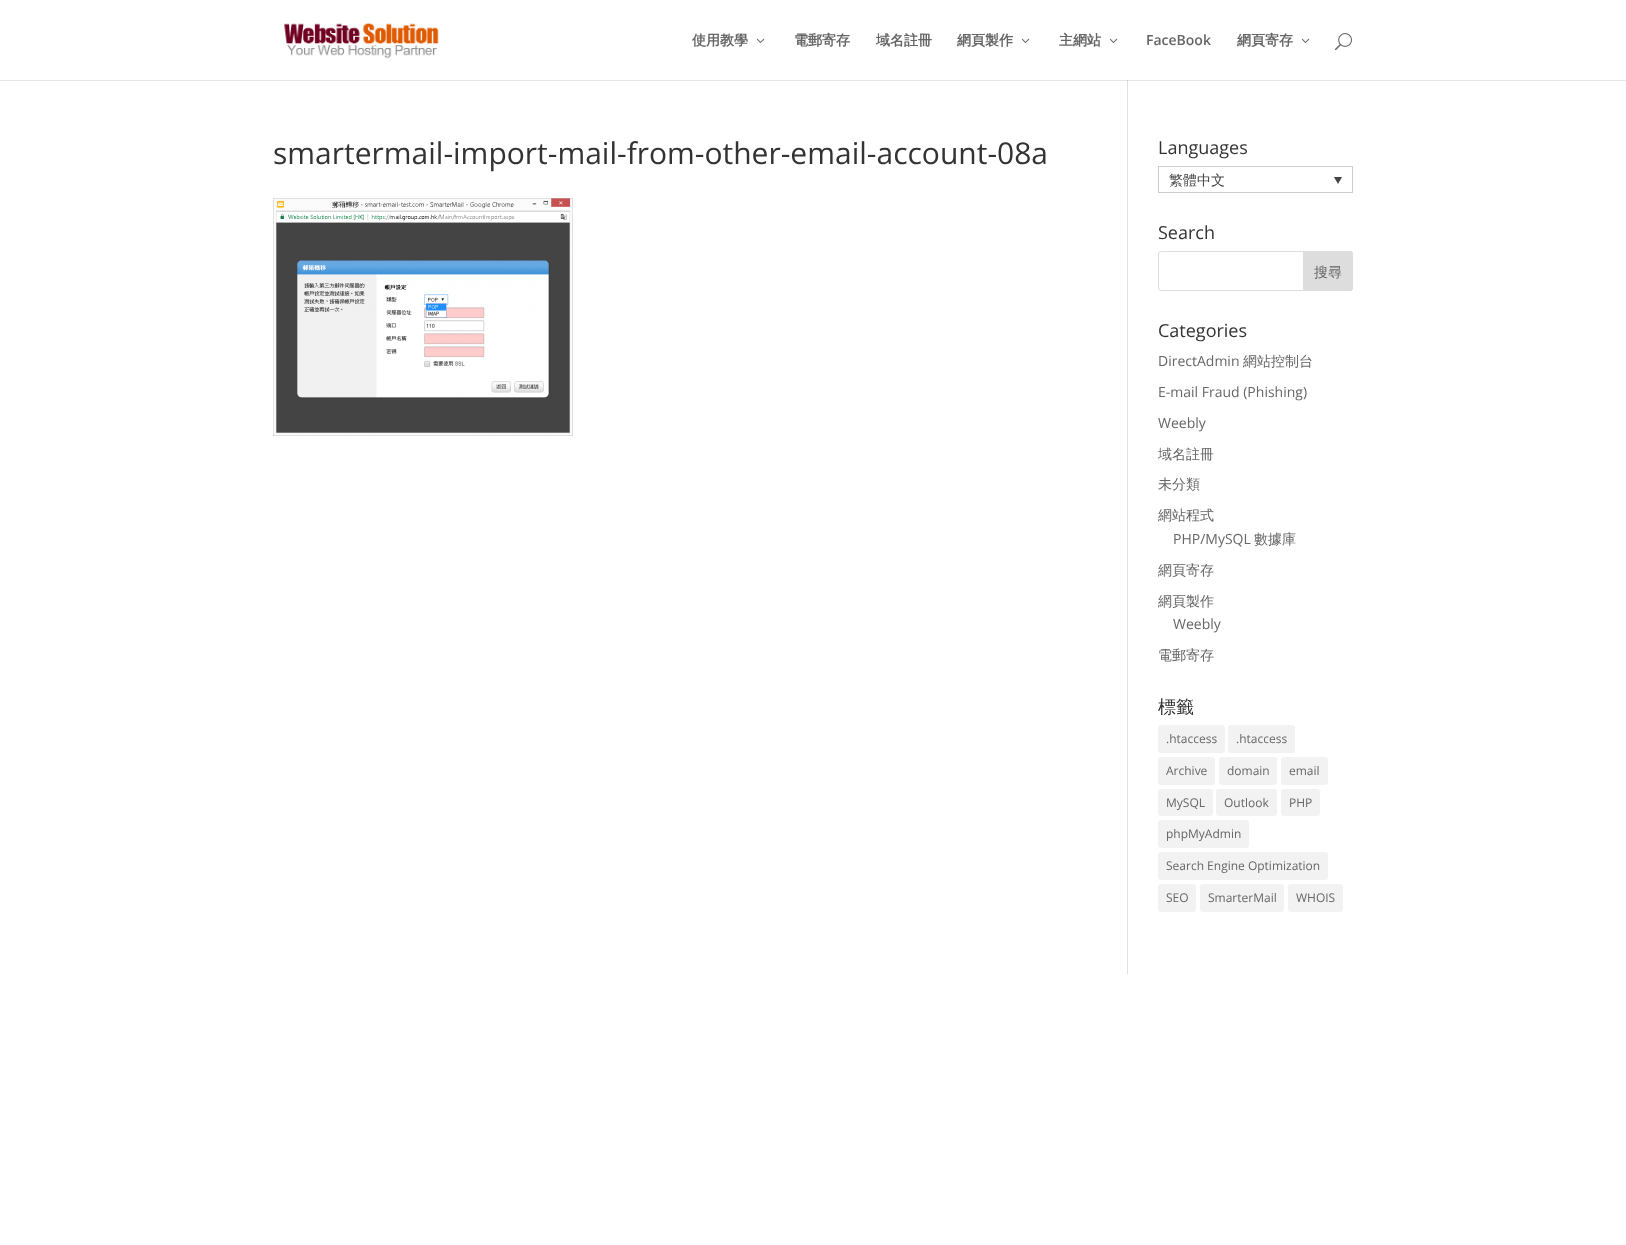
async function draw(canvas) {
  canvas.width = 1626
  canvas.height = 1245
  const ctx = canvas.getContext('2d')
  ctx.miterLimit = 4
  ctx.fontKerning = 'normal'
  async function loadImage(src) {
    const img = new Image()
    img.src = src
    await img.decode()
    return img
  }

  ctx.fillStyle = '#fff'
  ctx.fillRect(0, 0, 1626, 1245)
  ctx.fillStyle = '#e6e6e6'
  ctx.fillRect(0, 80, 1626, 1)
  ctx.drawImage(await loadImage('image0.png'), 284, 23, 155, 36)
  ctx.font = 'bold 14px WenQuanYi Zen Hei'
  ctx.fillStyle = '#666'
  ctx.fillText('使用教學', 692, 45)
  ctx.drawImage(await loadImage('image1.png'), 756, 38, 9, 5)
  ctx.fillText('電郵寄存', 794, 45)
  ctx.fillText('域名註冊', 876, 45)
  ctx.fillText('網頁製作', 957, 45)
  ctx.drawImage(await loadImage('image1.png'), 1021, 38, 9, 5)
  ctx.fillText('主網站', 1059, 45)
  ctx.drawImage(await loadImage('image1.png'), 1109, 38, 9, 5)
  ctx.font = '600 14px Open Sans'
  ctx.fillText('FaceBook', 1146, 45)
  ctx.font = 'bold 14px WenQuanYi Zen Hei'
  ctx.fillText('網頁寄存', 1237, 45)
  ctx.drawImage(await loadImage('image1.png'), 1301, 38, 9, 5)
  ctx.drawImage(await loadImage('image2.png'), 1335, 33, 17, 18)
  ctx.fillStyle = '#e2e2e2'
  ctx.fillRect(1127, 80, 1, 894)
  ctx.fillStyle = '#cbcbcb'
  ctx.fillRect(1127, 80, 1, 1)
  ctx.font = '30px Open Sans'
  ctx.fillStyle = '#333'
  ctx.fillText('smartermail-import-mail-from-other-email-account-08a', 273, 164)
  ctx.drawImage(await loadImage('image3.png'), 273, 198, 300, 238)
  ctx.font = '18px Open Sans'
  ctx.fillText('Languages', 1158, 154)
  ctx.strokeStyle = '#cdcdcd'
  ctx.strokeRect(1158.5, 166.5, 194, 26)
  ctx.font = '500 14px WenQuanYi Zen Hei'
  ctx.fillStyle = '#444'
  ctx.fillText('繁體中文', 1169, 185)
  ctx.beginPath()
  ctx.moveTo(1334, 177)
  ctx.lineTo(1342, 177)
  ctx.lineTo(1338, 184)
  ctx.closePath()
  ctx.fill()
  ctx.font = '18px Open Sans'
  ctx.fillStyle = '#333'
  ctx.fillText('Search', 1158, 239)
  ctx.beginPath()
  ctx.roundRect(1158.5, 251.5, 194, 39, 2.5)
  ctx.strokeStyle = '#ddd'
  ctx.stroke()
  ctx.fillStyle = '#ddd'
  ctx.beginPath()
  ctx.roundRect(1303.5, 251.5, 49, 39, [0, 2.5, 2.5, 0])
  ctx.fill()
  ctx.stroke()
  ctx.font = '500 14px WenQuanYi Zen Hei'
  ctx.fillStyle = '#666'
  ctx.fillText('搜尋', 1314, 277)
  ctx.font = '18px Open Sans'
  ctx.fillStyle = '#333'
  ctx.fillText('Categories', 1158, 337)
  ctx.font = '14px Open Sans'
  ctx.fillStyle = '#666'
  ctx.fillText('DirectAdmin', 1158, 366)
  ctx.font = '500 14px WenQuanYi Zen Hei'
  ctx.fillText('網站控制台', 1243, 366)
  ctx.font = '14px Open Sans'
  ctx.fillText('E-mail Fraud (Phishing)', 1158, 397)
  ctx.fillText('Weebly', 1158, 428)
  ctx.font = '500 14px WenQuanYi Zen Hei'
  ctx.fillText('域名註冊', 1158, 459)
  ctx.fillText('未分類', 1158, 489)
  ctx.fillText('網站程式', 1158, 520)
  ctx.font = '14px Open Sans'
  ctx.fillText('PHP/MySQL', 1173, 544)
  ctx.font = '500 14px WenQuanYi Zen Hei'
  ctx.fillText('數據庫', 1254, 544)
  ctx.fillText('網頁寄存', 1158, 575)
  ctx.fillText('網頁製作', 1158, 606)
  ctx.font = '14px Open Sans'
  ctx.fillText('Weebly', 1173, 629)
  ctx.font = '500 14px WenQuanYi Zen Hei'
  ctx.fillText('電郵寄存', 1158, 660)
  ctx.font = '500 18px WenQuanYi Zen Hei'
  ctx.fillStyle = '#333'
  ctx.fillText('標籤', 1158, 713)
  ctx.fillStyle = '#f2f2f2'
  ctx.beginPath()
  ctx.roundRect(1158, 725, 67, 28, 3)
  ctx.fill()
  ctx.font = '12px Open Sans'
  ctx.fillStyle = '#666'
  ctx.fillText('.htaccess', 1166, 743)
  ctx.fillStyle = '#f2f2f2'
  ctx.beginPath()
  ctx.roundRect(1228, 725, 67, 28, 3)
  ctx.fill()
  ctx.fillStyle = '#666'
  ctx.fillText('.htaccess', 1236, 743)
  ctx.fillStyle = '#f2f2f2'
  ctx.beginPath()
  ctx.roundRect(1158, 757, 57, 28, 3)
  ctx.fill()
  ctx.fillStyle = '#666'
  ctx.fillText('Archive', 1166, 775)
  ctx.fillStyle = '#f2f2f2'
  ctx.beginPath()
  ctx.roundRect(1219, 757, 58, 28, 3)
  ctx.fill()
  ctx.fillStyle = '#666'
  ctx.fillText('domain', 1227, 775)
  ctx.fillStyle = '#f2f2f2'
  ctx.beginPath()
  ctx.roundRect(1281, 757, 47, 28, 3)
  ctx.fill()
  ctx.fillStyle = '#666'
  ctx.fillText('email', 1289, 775)
  ctx.fillStyle = '#f2f2f2'
  ctx.beginPath()
  ctx.roundRect(1158, 789, 55, 27, 3)
  ctx.fill()
  ctx.fillStyle = '#666'
  ctx.fillText('MySQL', 1166, 807)
  ctx.fillStyle = '#f2f2f2'
  ctx.beginPath()
  ctx.roundRect(1216, 789, 61, 27, 3)
  ctx.fill()
  ctx.fillStyle = '#666'
  ctx.fillText('Outlook', 1224, 807)
  ctx.fillStyle = '#f2f2f2'
  ctx.beginPath()
  ctx.roundRect(1281, 789, 39, 27, 3)
  ctx.fill()
  ctx.fillStyle = '#666'
  ctx.fillText('PHP', 1289, 807)
  ctx.fillStyle = '#f2f2f2'
  ctx.beginPath()
  ctx.roundRect(1158, 820, 91, 28, 3)
  ctx.fill()
  ctx.fillStyle = '#666'
  ctx.fillText('phpMyAdmin', 1166, 838)
  ctx.fillStyle = '#f2f2f2'
  ctx.beginPath()
  ctx.roundRect(1158, 852, 170, 28, 3)
  ctx.fill()
  ctx.fillStyle = '#666'
  ctx.fillText('Search Engine Optimization', 1166, 870)
  ctx.fillStyle = '#f2f2f2'
  ctx.beginPath()
  ctx.roundRect(1158, 884, 38, 28, 3)
  ctx.fill()
  ctx.fillStyle = '#666'
  ctx.fillText('SEO', 1166, 902)
  ctx.fillStyle = '#f2f2f2'
  ctx.beginPath()
  ctx.roundRect(1200, 884, 84, 28, 3)
  ctx.fill()
  ctx.fillStyle = '#666'
  ctx.fillText('SmarterMail', 1208, 902)
  ctx.fillStyle = '#f2f2f2'
  ctx.beginPath()
  ctx.roundRect(1288, 884, 55, 28, 3)
  ctx.fill()
  ctx.fillStyle = '#666'
  ctx.fillText('WHOIS', 1296, 902)
}

draw(document.querySelector('canvas'))
